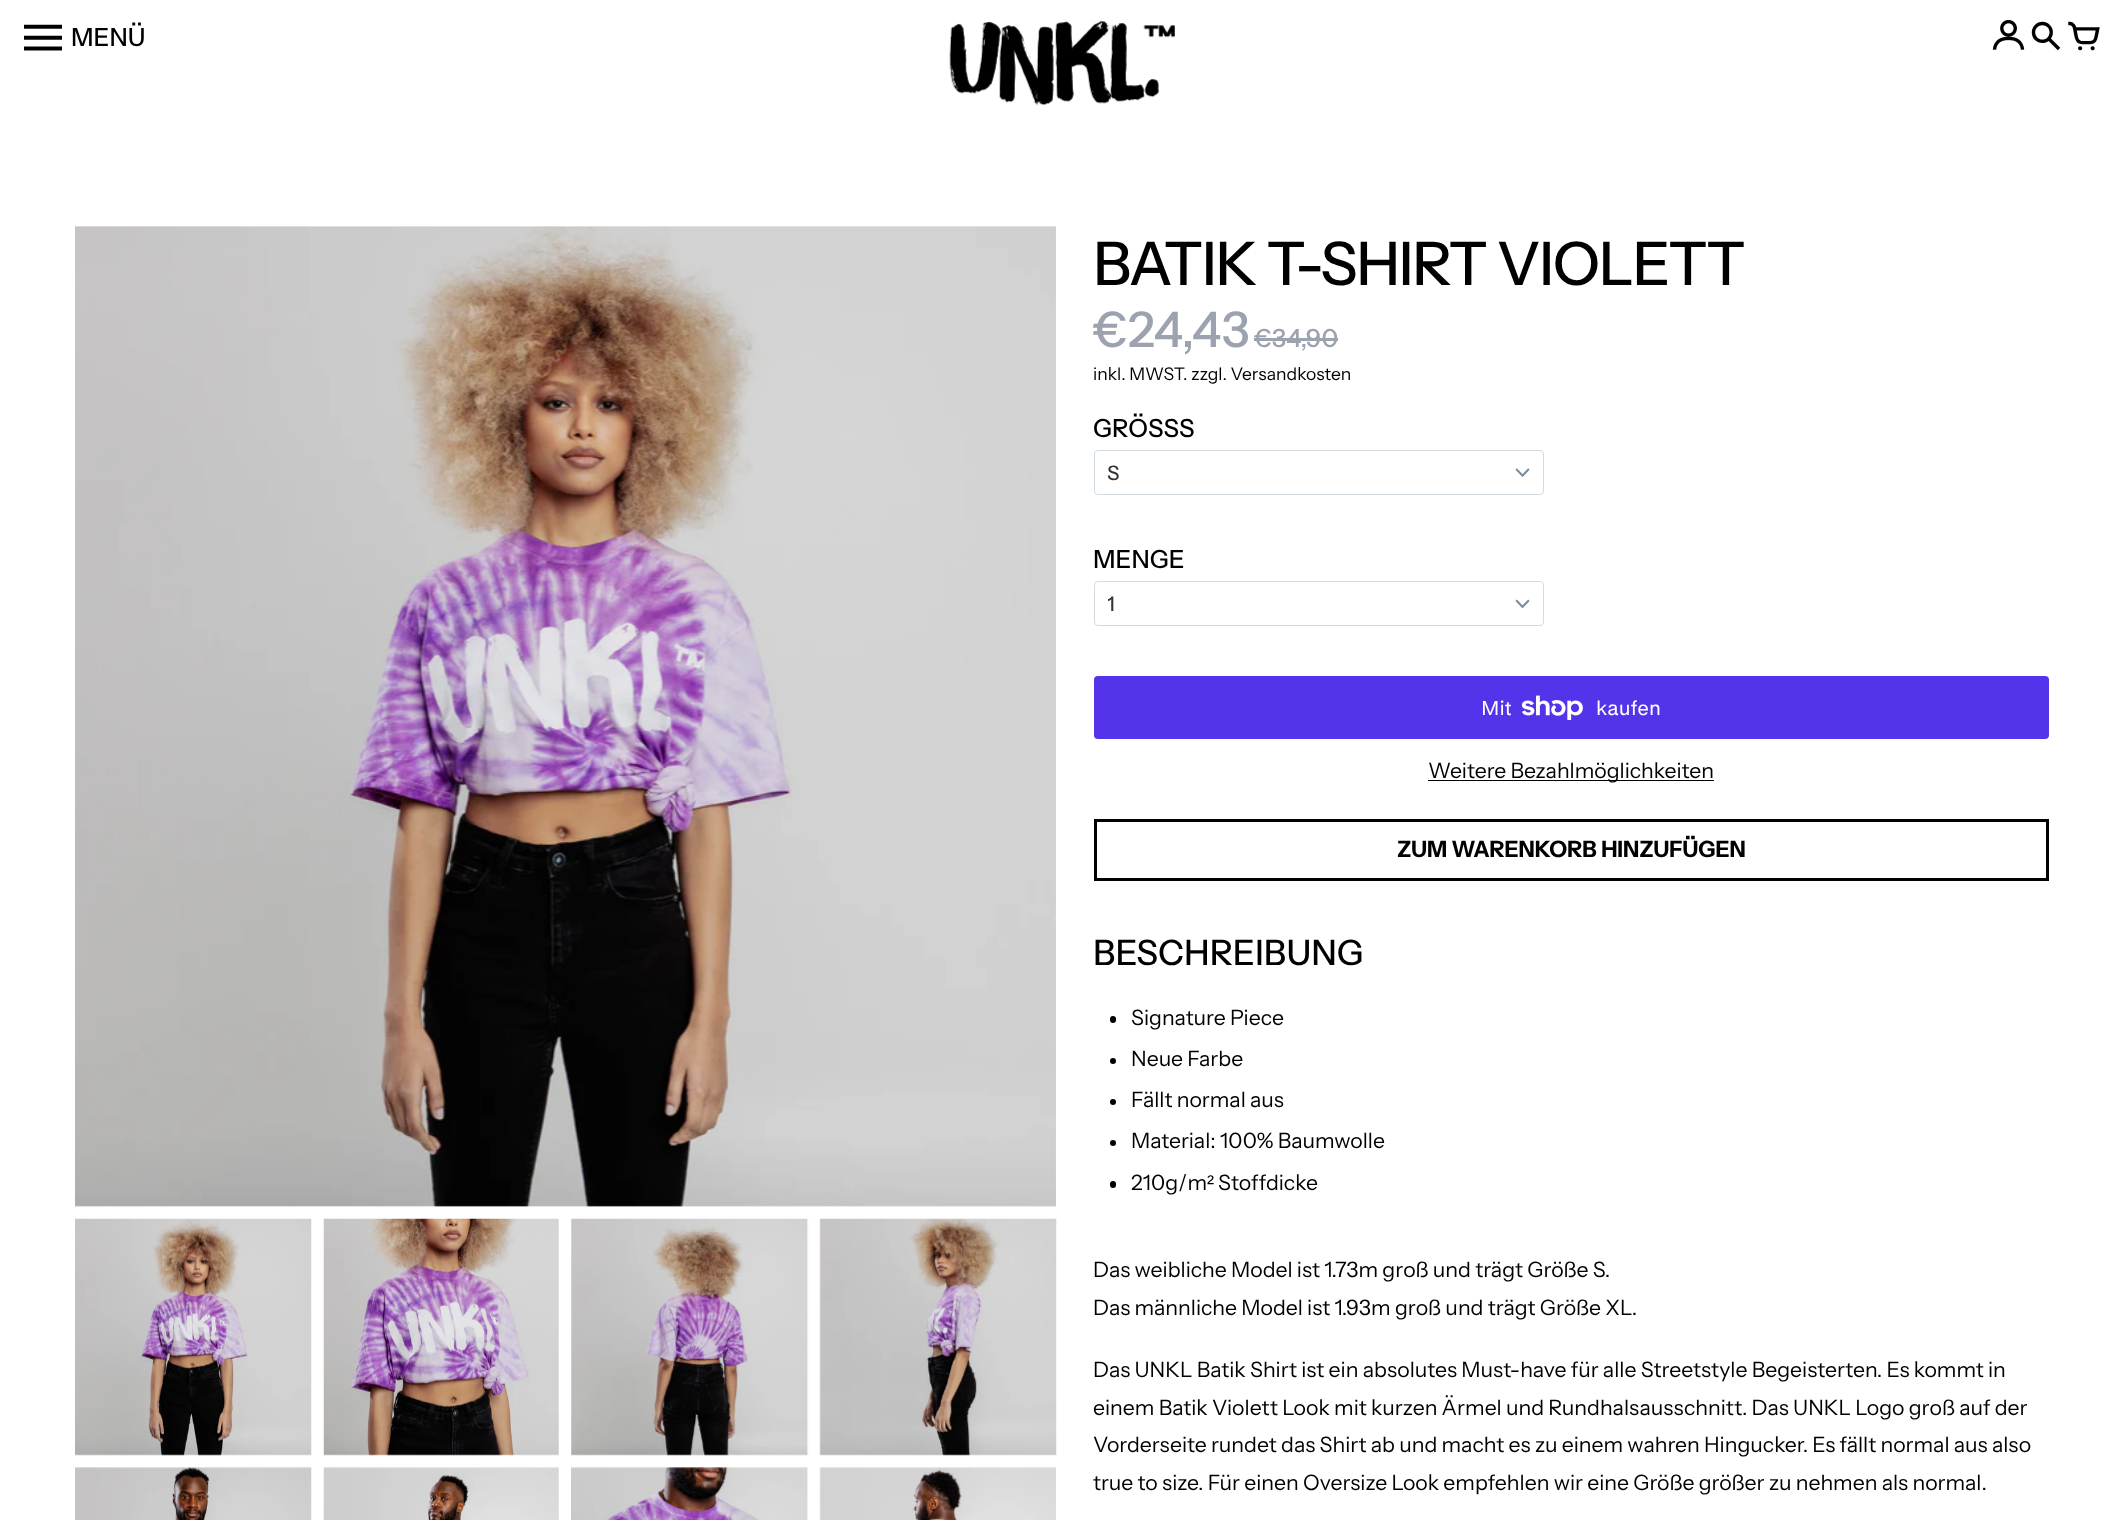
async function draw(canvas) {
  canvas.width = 2123
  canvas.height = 1520
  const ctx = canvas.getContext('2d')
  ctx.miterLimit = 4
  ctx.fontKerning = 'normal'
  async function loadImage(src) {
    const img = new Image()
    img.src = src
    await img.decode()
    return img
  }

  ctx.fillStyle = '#fff'
  ctx.fillRect(0, 0, 2123, 1520)
  ctx.font = '38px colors'
  ctx.fillStyle = '#000'
  ctx.fillText('1', 24, 59)
  ctx.font = '500 25px Instrument Sans'
  ctx.fillText('MENÜ', 71, 46)
  ctx.drawImage(await loadImage('image0.png'), 949, 21, 226, 85)
  ctx.drawImage(await loadImage('image1.png'), 1992, 20, 33, 30)
  ctx.font = '32px colors'
  ctx.fillText('2', 2030, 54)
  ctx.fillText('3', 2068, 54)
  ctx.drawImage(await loadImage('image2.png'), 75, 226, 981, 981)
  ctx.drawImage(await loadImage('image3.png'), 75, 1218, 237, 238)
  ctx.drawImage(await loadImage('image4.png'), 323, 1218, 236, 238)
  ctx.drawImage(await loadImage('image5.png'), 571, 1218, 238, 238)
  ctx.drawImage(await loadImage('image6.png'), 819, 1218, 238, 238)
  ctx.drawImage(await loadImage('image7.png'), 75, 1467, 237, 53)
  ctx.drawImage(await loadImage('image8.png'), 323, 1467, 236, 53)
  ctx.drawImage(await loadImage('image9.png'), 571, 1467, 237, 53)
  ctx.drawImage(await loadImage('image10.png'), 819, 1467, 237, 53)
  ctx.letterSpacing = '-1.5px'
  ctx.font = '500 60px Instrument Sans'
  ctx.fillText('BATIK T-SHIRT VIOLETT', 1093, 285)
  ctx.letterSpacing = '0px'
  ctx.font = '500 49px Instrument Sans'
  ctx.fillStyle = '#9ca3af'
  ctx.fillText('€24,43', 1093, 347)
  ctx.font = '500 25px Instrument Sans'
  ctx.fillText('€34,90', 1254, 347)
  ctx.fillRect(1254, 338, 84, 3)
  ctx.font = '17.5px Instrument Sans'
  ctx.fillStyle = '#000'
  ctx.fillText('inkl. MWST. zzgl. Versandkosten', 1093, 380)
  ctx.font = '500 25px Instrument Sans'
  ctx.fillText('GRÖSSS', 1093, 437)
  ctx.beginPath()
  ctx.roundRect(1094.5, 450.5, 449, 44, 3.5)
  ctx.strokeStyle = '#d3dbe2'
  ctx.stroke()
  ctx.font = '500 20px Instrument Sans'
  ctx.fillStyle = '#333'
  ctx.fillText('S', 1107, 480)
  ctx.drawImage(await loadImage('image11.png'), 1515, 468, 15, 9)
  ctx.font = '500 25px Instrument Sans'
  ctx.fillStyle = '#000'
  ctx.fillText('MENGE', 1093, 568)
  ctx.beginPath()
  ctx.roundRect(1094.5, 581.5, 449, 44, 3.5)
  ctx.stroke()
  ctx.save()
  ctx.beginPath()
  ctx.rect(1108, 591, 395, 25)
  ctx.clip()
  ctx.font = '500 20px Instrument Sans'
  ctx.fillStyle = '#333'
  ctx.fillText('1', 1107, 611)
  ctx.restore()
  ctx.drawImage(await loadImage('image12.png'), 1515, 599, 15, 10)
  ctx.fillStyle = '#5433eb'
  ctx.beginPath()
  ctx.roundRect(1094, 676, 955, 63, 4)
  ctx.fill()
  ctx.font = '20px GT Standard'
  ctx.fillStyle = '#fff'
  ctx.fillText('Mit', 1481, 715)
  ctx.drawImage(await loadImage('image13.png'), 1521, 695, 62, 25)
  ctx.fillText('kaufen', 1596, 715)
  ctx.fillStyle = '#000'
  ctx.fillRect(1428, 780, 286, 1)
  ctx.font = '21.25px Instrument Sans'
  ctx.fillText('Weitere Bezahlmöglichkeiten', 1428, 778)
  ctx.strokeStyle = '#000'
  ctx.lineWidth = 3
  ctx.strokeRect(1095.5, 820.5, 952, 59)
  ctx.font = 'bold 22.5px Instrument Sans'
  ctx.fillText('ZUM WARENKORB HINZUFÜGEN', 1397, 857)
  ctx.font = '500 35px Instrument Sans'
  ctx.fillText('BESCHREIBUNG', 1093, 965)
  ctx.beginPath()
  ctx.roundRect(1110, 1016, 6, 7, 3)
  ctx.fill()
  ctx.font = '21.25px Instrument Sans'
  ctx.fillText('Signature Piece', 1131, 1025)
  ctx.beginPath()
  ctx.arc(1113, 1061, 3, 0, 2 * Math.PI)
  ctx.fill()
  ctx.fillText('Neue Farbe', 1131, 1066)
  ctx.beginPath()
  ctx.arc(1113, 1102, 3, 0, 2 * Math.PI)
  ctx.fill()
  ctx.fillText('Fällt normal aus', 1131, 1107)
  ctx.beginPath()
  ctx.arc(1113, 1143, 3, 0, 2 * Math.PI)
  ctx.fill()
  ctx.fillText('Material: 100% Baumwolle', 1131, 1148)
  ctx.beginPath()
  ctx.roundRect(1110, 1181, 6, 7, 3)
  ctx.fill()
  ctx.fillText('210g/m', 1131, 1190)
  ctx.font = '21.25px Liberation Sans'
  ctx.fillText('²', 1207, 1190)
  ctx.font = '21.25px Instrument Sans'
  ctx.fillText('Stoffdicke', 1218, 1190)
  ctx.fillText('Das weibliche Model ist 1.73m groß und trägt Größe S.', 1093, 1277)
  ctx.fillText('Das männliche Model ist 1.93m groß und trägt Größe XL.', 1093, 1315)
  ctx.fillText('Das UNKL Batik Shirt ist ein absolutes Must-have für alle Streetstyle Begeisterten. Es kommt in', 1093, 1377)
  ctx.fillText('einem Batik Violett Look mit kurzen Ärmel und Rundhalsausschnitt. Das UNKL Logo groß auf der', 1093, 1415)
  ctx.fillText('Vorderseite rundet das Shirt ab und macht es zu einem wahren Hingucker. Es fällt normal aus also', 1093, 1452)
  ctx.fillText('true to size. Für einen Oversize Look empfehlen wir eine Größe größer zu nehmen als normal.', 1093, 1490)
}

draw(document.querySelector('canvas'))
